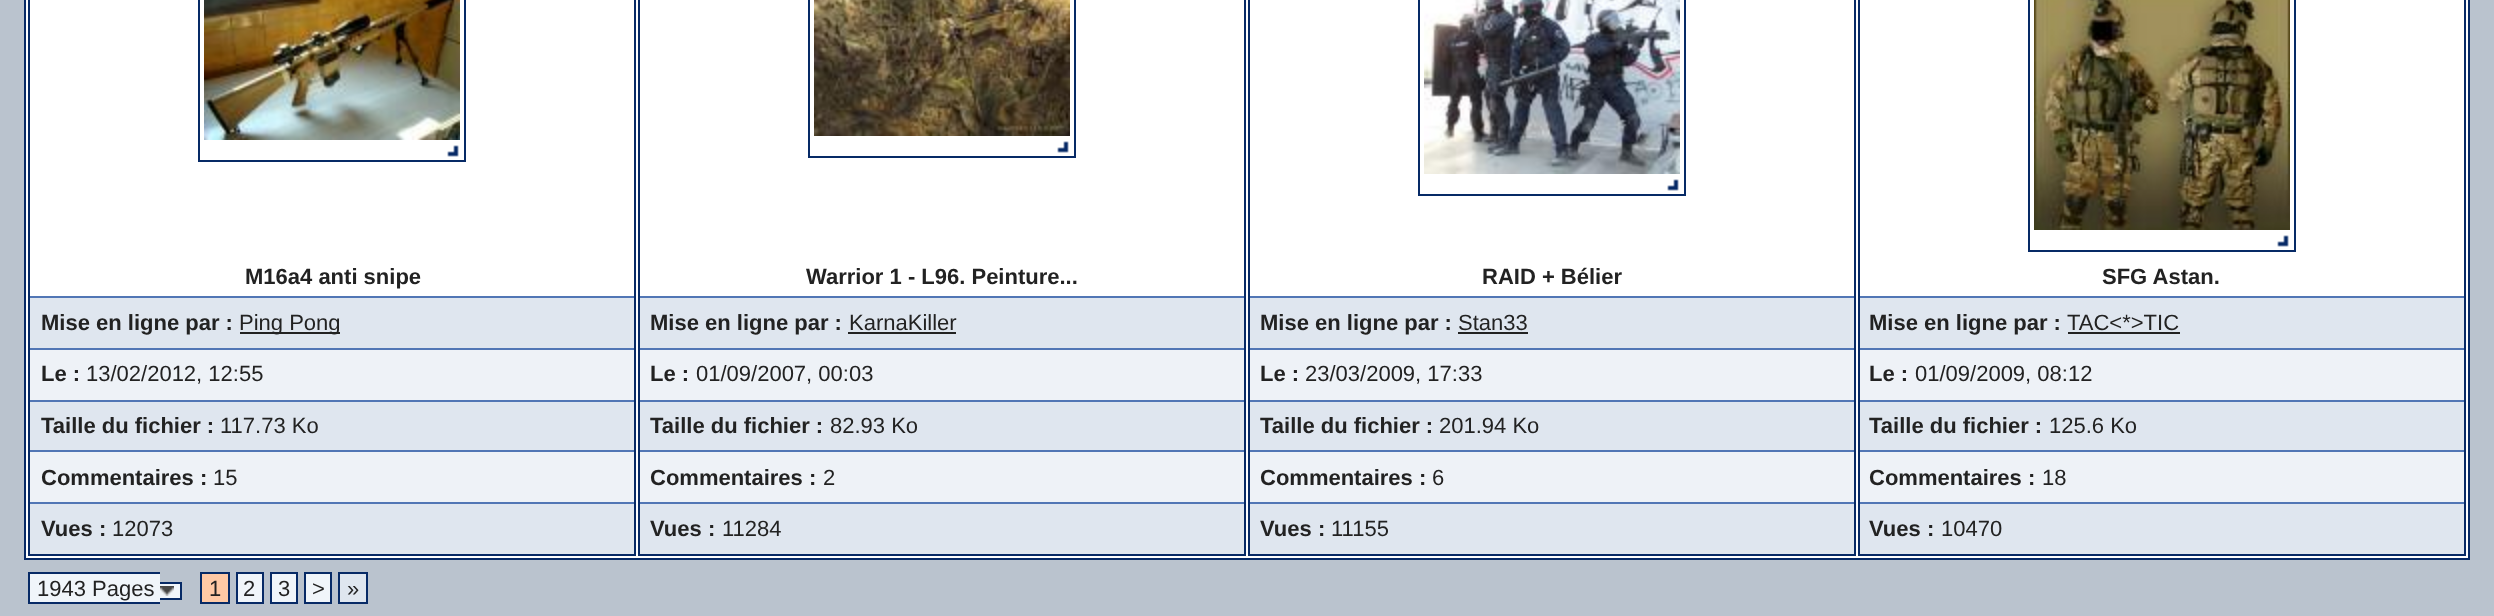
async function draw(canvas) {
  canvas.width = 2494
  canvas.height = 616
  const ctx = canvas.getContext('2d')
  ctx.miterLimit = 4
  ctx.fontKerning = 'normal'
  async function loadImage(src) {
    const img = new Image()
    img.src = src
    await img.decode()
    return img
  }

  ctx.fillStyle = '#bac3ce'
  ctx.fillRect(0, 0, 2494, 616)
  ctx.fillStyle = '#fff'
  ctx.beginPath()
  ctx.rect(25, -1, 2444, 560)
  ctx.fill()
  ctx.strokeStyle = '#072a66'
  ctx.lineWidth = 2
  ctx.stroke()
  ctx.strokeRect(29, -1, 606, 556)
  ctx.drawImage(await loadImage('image0.png'), 204, 0, 256, 157)
  ctx.strokeRect(199, -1, 266, 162)
  ctx.font = 'bold 22px Liberation Sans'
  ctx.fillStyle = '#222'
  ctx.fillText('M16a4 anti snipe', 245, 284)
  ctx.fillStyle = '#dfe6ef'
  ctx.fillRect(30, 298, 604, 50)
  ctx.fillStyle = '#5176b5'
  ctx.fillRect(30, 296, 604, 2)
  ctx.fillStyle = '#222'
  ctx.fillText('Mise en ligne par :', 41, 330)
  ctx.fillRect(240, 332, 100, 2)
  ctx.font = '22px Liberation Sans'
  ctx.fillText('Ping Pong', 239, 330)
  ctx.fillStyle = '#eef2f7'
  ctx.fillRect(30, 350, 604, 50)
  ctx.fillStyle = '#5176b5'
  ctx.fillRect(30, 348, 604, 2)
  ctx.font = 'bold 22px Liberation Sans'
  ctx.fillStyle = '#222'
  ctx.fillText('Le :', 41, 381)
  ctx.font = '22px Liberation Sans'
  ctx.fillText('13/02/2012, 12:55', 86, 381)
  ctx.fillStyle = '#dfe6ef'
  ctx.fillRect(30, 402, 604, 48)
  ctx.fillStyle = '#5176b5'
  ctx.fillRect(30, 400, 604, 2)
  ctx.font = 'bold 22px Liberation Sans'
  ctx.fillStyle = '#222'
  ctx.fillText('Taille du fichier :', 41, 433)
  ctx.font = '22px Liberation Sans'
  ctx.fillText('117.73 Ko', 220, 433)
  ctx.fillStyle = '#eef2f7'
  ctx.fillRect(30, 452, 604, 50)
  ctx.fillStyle = '#5176b5'
  ctx.fillRect(30, 450, 604, 2)
  ctx.font = 'bold 22px Liberation Sans'
  ctx.fillStyle = '#222'
  ctx.fillText('Commentaires :', 41, 485)
  ctx.font = '22px Liberation Sans'
  ctx.fillText('15', 213, 485)
  ctx.fillStyle = '#dfe6ef'
  ctx.fillRect(30, 504, 604, 50)
  ctx.fillStyle = '#5176b5'
  ctx.fillRect(30, 502, 604, 2)
  ctx.font = 'bold 22px Liberation Sans'
  ctx.fillStyle = '#222'
  ctx.fillText('Vues :', 41, 536)
  ctx.font = '22px Liberation Sans'
  ctx.fillText('12073', 112, 536)
  ctx.strokeRect(639, -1, 606, 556)
  ctx.drawImage(await loadImage('image1.png'), 814, 0, 256, 153)
  ctx.strokeRect(809, -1, 266, 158)
  ctx.font = 'bold 22px Liberation Sans'
  ctx.fillText('Warrior 1 - L96. Peinture...', 806, 284)
  ctx.fillStyle = '#dfe6ef'
  ctx.fillRect(640, 298, 604, 50)
  ctx.fillStyle = '#5176b5'
  ctx.fillRect(640, 296, 604, 2)
  ctx.fillStyle = '#222'
  ctx.fillText('Mise en ligne par :', 650, 330)
  ctx.font = '22px Liberation Sans'
  ctx.fillText('KarnaKiller', 849, 330)
  ctx.fillRect(848, 332, 108, 2)
  ctx.fillStyle = '#eef2f7'
  ctx.fillRect(640, 350, 604, 50)
  ctx.fillStyle = '#5176b5'
  ctx.fillRect(640, 348, 604, 2)
  ctx.font = 'bold 22px Liberation Sans'
  ctx.fillStyle = '#222'
  ctx.fillText('Le :', 650, 381)
  ctx.font = '22px Liberation Sans'
  ctx.fillText('01/09/2007, 00:03', 696, 381)
  ctx.fillStyle = '#dfe6ef'
  ctx.fillRect(640, 402, 604, 48)
  ctx.fillStyle = '#5176b5'
  ctx.fillRect(640, 400, 604, 2)
  ctx.font = 'bold 22px Liberation Sans'
  ctx.fillStyle = '#222'
  ctx.fillText('Taille du fichier :', 650, 433)
  ctx.font = '22px Liberation Sans'
  ctx.fillText('82.93 Ko', 830, 433)
  ctx.fillStyle = '#eef2f7'
  ctx.fillRect(640, 452, 604, 50)
  ctx.fillStyle = '#5176b5'
  ctx.fillRect(640, 450, 604, 2)
  ctx.font = 'bold 22px Liberation Sans'
  ctx.fillStyle = '#222'
  ctx.fillText('Commentaires :', 650, 485)
  ctx.font = '22px Liberation Sans'
  ctx.fillText('2', 823, 485)
  ctx.fillStyle = '#dfe6ef'
  ctx.fillRect(640, 504, 604, 50)
  ctx.fillStyle = '#5176b5'
  ctx.fillRect(640, 502, 604, 2)
  ctx.font = 'bold 22px Liberation Sans'
  ctx.fillStyle = '#222'
  ctx.fillText('Vues :', 650, 536)
  ctx.font = '22px Liberation Sans'
  ctx.fillText('11284', 722, 536)
  ctx.strokeRect(1249, -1, 606, 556)
  ctx.drawImage(await loadImage('image2.png'), 1424, 0, 256, 191)
  ctx.strokeRect(1419, -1, 266, 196)
  ctx.font = 'bold 22px Liberation Sans'
  ctx.fillText('RAID + Bélier', 1482, 284)
  ctx.fillStyle = '#dfe6ef'
  ctx.fillRect(1250, 298, 604, 50)
  ctx.fillStyle = '#5176b5'
  ctx.fillRect(1250, 296, 604, 2)
  ctx.fillStyle = '#222'
  ctx.fillText('Mise en ligne par :', 1260, 330)
  ctx.font = '22px Liberation Sans'
  ctx.fillText('Stan33', 1458, 330)
  ctx.fillRect(1458, 332, 70, 2)
  ctx.fillStyle = '#eef2f7'
  ctx.fillRect(1250, 350, 604, 50)
  ctx.fillStyle = '#5176b5'
  ctx.fillRect(1250, 348, 604, 2)
  ctx.font = 'bold 22px Liberation Sans'
  ctx.fillStyle = '#222'
  ctx.fillText('Le :', 1260, 381)
  ctx.font = '22px Liberation Sans'
  ctx.fillText('23/03/2009, 17:33', 1305, 381)
  ctx.fillStyle = '#dfe6ef'
  ctx.fillRect(1250, 402, 604, 48)
  ctx.fillStyle = '#5176b5'
  ctx.fillRect(1250, 400, 604, 2)
  ctx.font = 'bold 22px Liberation Sans'
  ctx.fillStyle = '#222'
  ctx.fillText('Taille du fichier :', 1260, 433)
  ctx.font = '22px Liberation Sans'
  ctx.fillText('201.94 Ko', 1439, 433)
  ctx.fillStyle = '#eef2f7'
  ctx.fillRect(1250, 452, 604, 50)
  ctx.fillStyle = '#5176b5'
  ctx.fillRect(1250, 450, 604, 2)
  ctx.font = 'bold 22px Liberation Sans'
  ctx.fillStyle = '#222'
  ctx.fillText('Commentaires :', 1260, 485)
  ctx.font = '22px Liberation Sans'
  ctx.fillText('6', 1432, 485)
  ctx.fillStyle = '#dfe6ef'
  ctx.fillRect(1250, 504, 604, 50)
  ctx.fillStyle = '#5176b5'
  ctx.fillRect(1250, 502, 604, 2)
  ctx.font = 'bold 22px Liberation Sans'
  ctx.fillStyle = '#222'
  ctx.fillText('Vues :', 1260, 536)
  ctx.font = '22px Liberation Sans'
  ctx.fillText('11155', 1331, 536)
  ctx.strokeRect(1859, -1, 606, 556)
  ctx.drawImage(await loadImage('image3.png'), 2034, 0, 256, 247)
  ctx.strokeRect(2029, -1, 266, 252)
  ctx.font = 'bold 22px Liberation Sans'
  ctx.fillText('SFG Astan.', 2102, 284)
  ctx.fillStyle = '#dfe6ef'
  ctx.fillRect(1860, 298, 604, 50)
  ctx.fillStyle = '#5176b5'
  ctx.fillRect(1860, 296, 604, 2)
  ctx.fillStyle = '#222'
  ctx.fillText('Mise en ligne par :', 1869, 330)
  ctx.font = '22px Liberation Sans'
  ctx.fillText('TAC<*>TIC', 2067, 330)
  ctx.fillRect(2068, 332, 112, 2)
  ctx.fillStyle = '#eef2f7'
  ctx.fillRect(1860, 350, 604, 50)
  ctx.fillStyle = '#5176b5'
  ctx.fillRect(1860, 348, 604, 2)
  ctx.font = 'bold 22px Liberation Sans'
  ctx.fillStyle = '#222'
  ctx.fillText('Le :', 1869, 381)
  ctx.font = '22px Liberation Sans'
  ctx.fillText('01/09/2009, 08:12', 1915, 381)
  ctx.fillStyle = '#dfe6ef'
  ctx.fillRect(1860, 402, 604, 48)
  ctx.fillStyle = '#5176b5'
  ctx.fillRect(1860, 400, 604, 2)
  ctx.font = 'bold 22px Liberation Sans'
  ctx.fillStyle = '#222'
  ctx.fillText('Taille du fichier :', 1869, 433)
  ctx.font = '22px Liberation Sans'
  ctx.fillText('125.6 Ko', 2049, 433)
  ctx.fillStyle = '#eef2f7'
  ctx.fillRect(1860, 452, 604, 50)
  ctx.fillStyle = '#5176b5'
  ctx.fillRect(1860, 450, 604, 2)
  ctx.font = 'bold 22px Liberation Sans'
  ctx.fillStyle = '#222'
  ctx.fillText('Commentaires :', 1869, 485)
  ctx.font = '22px Liberation Sans'
  ctx.fillText('18', 2042, 485)
  ctx.fillStyle = '#dfe6ef'
  ctx.fillRect(1860, 504, 604, 50)
  ctx.fillStyle = '#5176b5'
  ctx.fillRect(1860, 502, 604, 2)
  ctx.font = 'bold 22px Liberation Sans'
  ctx.fillStyle = '#222'
  ctx.fillText('Vues :', 1869, 536)
  ctx.font = '22px Liberation Sans'
  ctx.fillText('10470', 1941, 536)
  ctx.fillStyle = '#f0f5fa'
  ctx.fillRect(30, 574, 130, 28)
  ctx.fillStyle = '#222'
  ctx.fillText('1943 Pages', 37, 596)
  ctx.fillStyle = '#072a66'
  ctx.fillRect(28, 572, 132, 2)
  ctx.fillRect(28, 602, 132, 2)
  ctx.fillRect(28, 572, 2, 32)
  ctx.fillStyle = '#f0f5fa'
  ctx.fillRect(160, 584, 20, 14)
  ctx.fillStyle = '#072a66'
  ctx.fillRect(160, 582, 22, 2)
  ctx.fillRect(180, 582, 2, 18)
  ctx.fillRect(160, 598, 22, 2)
  ctx.drawImage(await loadImage('image4.png'), 160, 586, 14, 10)
  ctx.fillStyle = '#ffc9a5'
  ctx.beginPath()
  ctx.rect(201, 573, 28, 30)
  ctx.fill()
  ctx.stroke()
  ctx.fillStyle = '#222'
  ctx.fillText('1', 209, 596)
  ctx.fillStyle = '#f0f5fa'
  ctx.beginPath()
  ctx.rect(237, 573, 26, 30)
  ctx.fill()
  ctx.stroke()
  ctx.fillStyle = '#222'
  ctx.fillText('2', 243, 596)
  ctx.fillStyle = '#f0f5fa'
  ctx.beginPath()
  ctx.rect(271, 573, 26, 30)
  ctx.fill()
  ctx.stroke()
  ctx.fillStyle = '#222'
  ctx.fillText('3', 278, 596)
  ctx.fillStyle = '#f0f5fa'
  ctx.beginPath()
  ctx.rect(305, 573, 26, 30)
  ctx.fill()
  ctx.stroke()
  ctx.fillStyle = '#222'
  ctx.fillText('>', 312, 596)
  ctx.fillStyle = '#dfe6ef'
  ctx.beginPath()
  ctx.rect(339, 573, 28, 30)
  ctx.fill()
  ctx.stroke()
  ctx.fillStyle = '#222'
  ctx.fillText('»', 347, 596)
}

draw(document.querySelector('canvas'))
